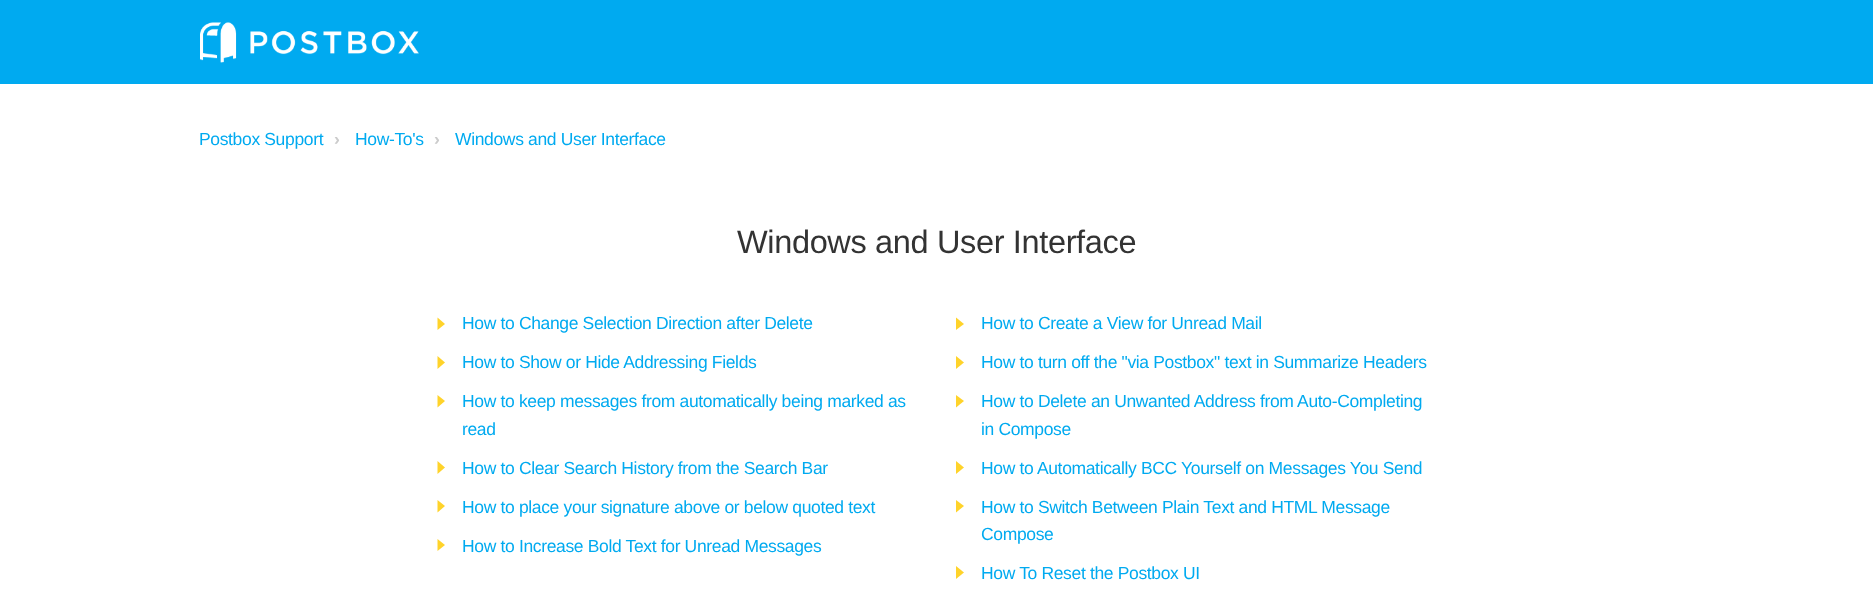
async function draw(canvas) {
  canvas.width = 1873
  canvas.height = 597
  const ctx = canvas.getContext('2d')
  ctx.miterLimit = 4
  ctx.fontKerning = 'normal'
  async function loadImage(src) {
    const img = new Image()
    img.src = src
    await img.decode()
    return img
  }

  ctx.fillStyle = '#fff'
  ctx.fillRect(0, 0, 1873, 597)
  ctx.fillStyle = '#00aaf0'
  ctx.fillRect(0, 0, 1873, 84)
  ctx.drawImage(await loadImage('image0.png'), 200, 22, 219, 41)
  ctx.letterSpacing = '-0.35px'
  ctx.font = '17.5px Liberation Sans'
  ctx.fillText('Postbox Support', 199, 145)
  ctx.font = 'bold 17.5px Liberation Sans'
  ctx.fillStyle = '#ccc'
  ctx.fillText('›', 334, 145)
  ctx.font = '17.5px Liberation Sans'
  ctx.fillStyle = '#00aaf0'
  ctx.fillText('How-To\'s', 355, 145)
  ctx.font = 'bold 17.5px Liberation Sans'
  ctx.fillStyle = '#ccc'
  ctx.fillText('›', 434, 145)
  ctx.font = '17.5px Liberation Sans'
  ctx.fillStyle = '#00aaf0'
  ctx.fillText('Windows and User Interface', 455, 145)
  ctx.font = '32.5px Liberation Sans'
  ctx.fillStyle = '#333'
  ctx.fillText('Windows and User Interface', 737, 253)
  ctx.fillStyle = '#ffd32a'
  ctx.beginPath()
  ctx.moveTo(437.5, 330)
  ctx.lineTo(437.5, 317.5)
  ctx.lineTo(445, 324)
  ctx.closePath()
  ctx.fill()
  ctx.font = '17.5px Liberation Sans'
  ctx.fillStyle = '#00aaf0'
  ctx.fillText('How to Change Selection Direction after Delete', 462, 329)
  ctx.fillStyle = '#ffd32a'
  ctx.beginPath()
  ctx.moveTo(956, 330)
  ctx.lineTo(956, 317.5)
  ctx.lineTo(964, 324)
  ctx.closePath()
  ctx.fill()
  ctx.fillStyle = '#00aaf0'
  ctx.fillText('How to Create a View for Unread Mail', 981, 329)
  ctx.fillStyle = '#ffd32a'
  ctx.beginPath()
  ctx.moveTo(437.5, 369)
  ctx.lineTo(437.5, 356)
  ctx.lineTo(445, 362.5)
  ctx.closePath()
  ctx.fill()
  ctx.fillStyle = '#00aaf0'
  ctx.fillText('How to Show or Hide Addressing Fields', 462, 368)
  ctx.fillStyle = '#ffd32a'
  ctx.beginPath()
  ctx.moveTo(956, 369)
  ctx.lineTo(956, 356)
  ctx.lineTo(964, 362.5)
  ctx.closePath()
  ctx.fill()
  ctx.fillStyle = '#00aaf0'
  ctx.fillText('How to turn off the "via Postbox" text in Summarize Headers', 981, 368)
  ctx.fillStyle = '#ffd32a'
  ctx.beginPath()
  ctx.moveTo(437.5, 407.5)
  ctx.lineTo(437.5, 395)
  ctx.lineTo(445, 401)
  ctx.closePath()
  ctx.fill()
  ctx.fillStyle = '#00aaf0'
  ctx.fillText('How to keep messages from automatically being marked as', 462, 407)
  ctx.fillText('read', 462, 435)
  ctx.fillStyle = '#ffd32a'
  ctx.beginPath()
  ctx.moveTo(956, 407.5)
  ctx.lineTo(956, 395)
  ctx.lineTo(964, 401)
  ctx.closePath()
  ctx.fill()
  ctx.fillStyle = '#00aaf0'
  ctx.fillText('How to Delete an Unwanted Address from Auto-Completing', 981, 407)
  ctx.fillText('in Compose', 981, 435)
  ctx.fillStyle = '#ffd32a'
  ctx.beginPath()
  ctx.moveTo(437.5, 474)
  ctx.lineTo(437.5, 461)
  ctx.lineTo(445, 467.5)
  ctx.closePath()
  ctx.fill()
  ctx.fillStyle = '#00aaf0'
  ctx.fillText('How to Clear Search History from the Search Bar', 462, 474)
  ctx.fillStyle = '#ffd32a'
  ctx.beginPath()
  ctx.moveTo(956, 474)
  ctx.lineTo(956, 461)
  ctx.lineTo(964, 467.5)
  ctx.closePath()
  ctx.fill()
  ctx.fillStyle = '#00aaf0'
  ctx.fillText('How to Automatically BCC Yourself on Messages You Send', 981, 474)
  ctx.fillStyle = '#ffd32a'
  ctx.beginPath()
  ctx.moveTo(437.5, 512.5)
  ctx.lineTo(437.5, 500)
  ctx.lineTo(445, 506)
  ctx.closePath()
  ctx.fill()
  ctx.fillStyle = '#00aaf0'
  ctx.fillText('How to place your signature above or below quoted text', 462, 513)
  ctx.fillStyle = '#ffd32a'
  ctx.beginPath()
  ctx.moveTo(956, 512.5)
  ctx.lineTo(956, 500)
  ctx.lineTo(964, 506)
  ctx.closePath()
  ctx.fill()
  ctx.fillStyle = '#00aaf0'
  ctx.fillText('How to Switch Between Plain Text and HTML Message', 981, 513)
  ctx.fillText('Compose', 981, 540)
  ctx.fillStyle = '#ffd32a'
  ctx.beginPath()
  ctx.moveTo(437.5, 551)
  ctx.lineTo(437.5, 539)
  ctx.lineTo(445, 545)
  ctx.closePath()
  ctx.fill()
  ctx.fillStyle = '#00aaf0'
  ctx.fillText('How to Increase Bold Text for Unread Messages', 462, 552)
  ctx.fillStyle = '#ffd32a'
  ctx.beginPath()
  ctx.moveTo(956, 579)
  ctx.lineTo(956, 566)
  ctx.lineTo(964, 572.5)
  ctx.closePath()
  ctx.fill()
  ctx.fillStyle = '#00aaf0'
  ctx.fillText('How To Reset the Postbox UI', 981, 579)
}

draw(document.querySelector('canvas'))
